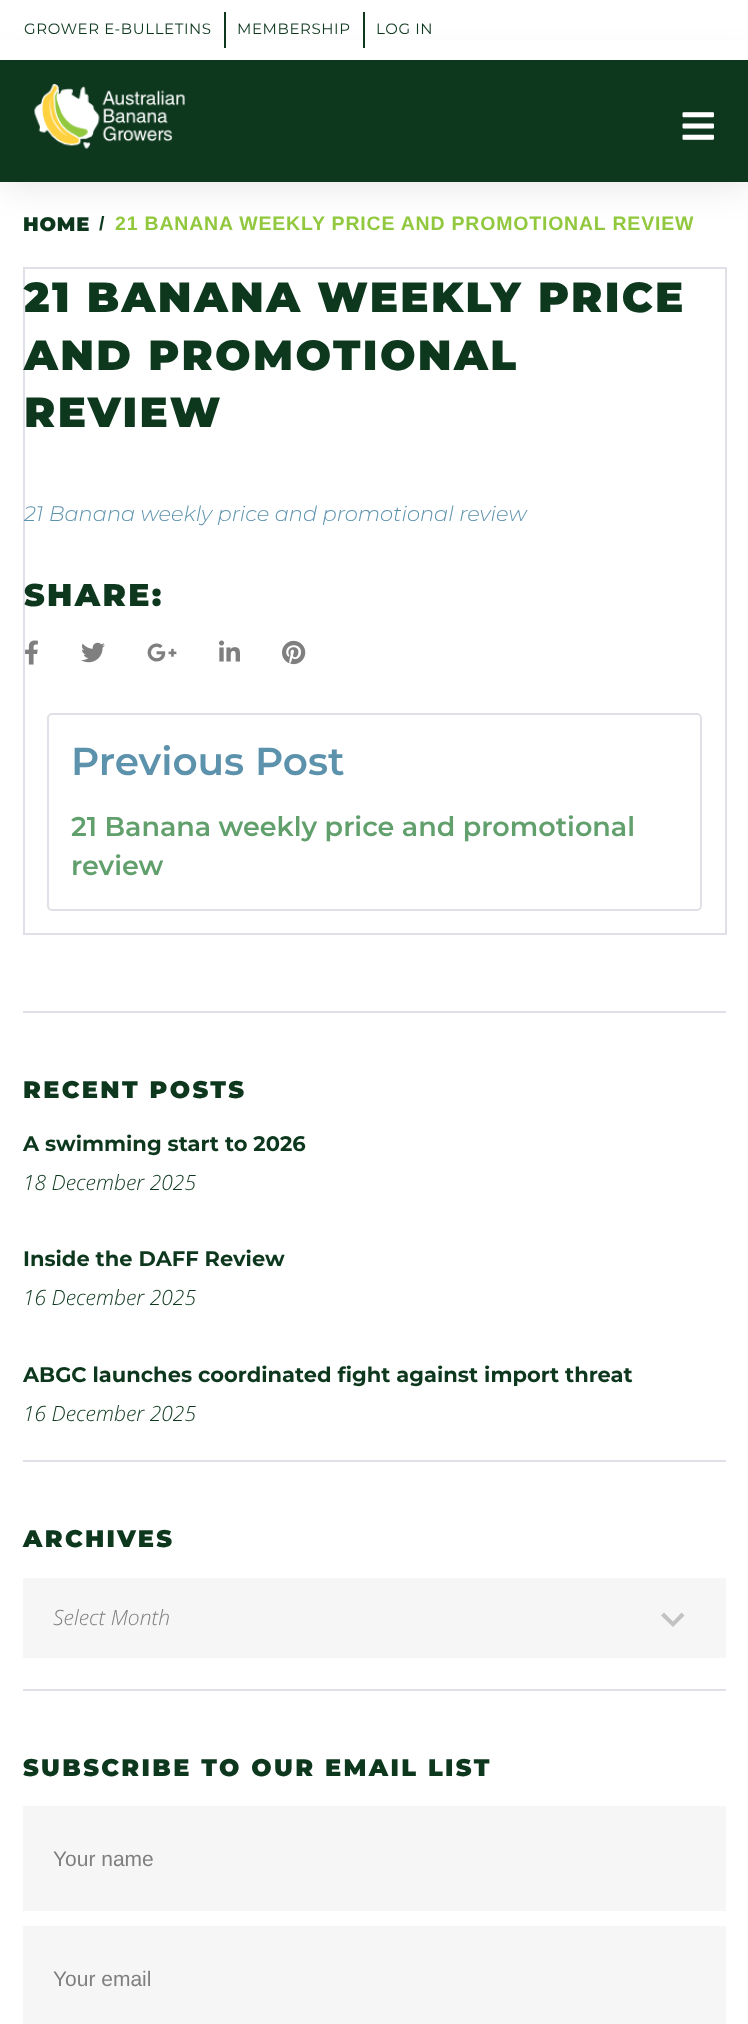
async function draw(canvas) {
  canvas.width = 748
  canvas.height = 2024
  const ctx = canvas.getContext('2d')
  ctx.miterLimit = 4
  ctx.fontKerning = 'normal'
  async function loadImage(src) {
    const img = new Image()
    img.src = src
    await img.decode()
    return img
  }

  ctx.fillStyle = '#fff'
  ctx.fillRect(0, 0, 748, 2024)
  ctx.fillStyle = '#0000001a'
  ctx.filter = 'blur(18px)'
  ctx.beginPath()
  ctx.rect(3, 63, 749, 122)
  ctx.fill()
  ctx.filter = 'none'
  ctx.fillStyle = '#0d381e'
  ctx.fillRect(0, 60, 748, 122)
  ctx.drawImage(await loadImage('image0.png'), 34, 84, 151, 65)
  ctx.drawImage(await loadImage('image1.png'), 682, 112, 32, 28)
  ctx.fillStyle = '#fff'
  ctx.fillRect(0, 40, 748, 20)
  ctx.letterSpacing = '0.6px'
  ctx.font = '15px Montserrat'
  ctx.fillStyle = '#0d381e'
  ctx.fillText('GROWER E-BULLETINS', 24, 34)
  ctx.fillRect(224, 12, 2, 36)
  ctx.fillText('MEMBERSHIP', 237, 34)
  ctx.fillRect(363, 12, 2, 36)
  ctx.fillText('LOG IN', 376, 34)
  ctx.letterSpacing = '0.8px'
  ctx.font = '900 19.5px Montserrat'
  ctx.fillText('HOME', 23, 231)
  ctx.font = 'bold 19.5px Liberation Sans'
  ctx.fillText('/', 99, 230)
  ctx.fillStyle = '#91c83e'
  ctx.fillText('21 BANANA WEEKLY PRICE AND PROMOTIONAL REVIEW', 115, 230)
  ctx.fillStyle = '#e0e0e8'
  ctx.fillRect(725, 267, 2, 668)
  ctx.fillRect(23, 933, 703, 2)
  ctx.fillRect(23, 267, 2, 668)
  ctx.fillRect(24, 267, 701, 2)
  ctx.letterSpacing = '2.35px'
  ctx.font = '900 42px Montserrat'
  ctx.fillStyle = '#0d381e'
  ctx.fillText('21 BANANA WEEKLY PRICE', 24, 312)
  ctx.fillText('AND PROMOTIONAL', 24, 370)
  ctx.fillText('REVIEW', 24, 427)
  ctx.letterSpacing = '0px'
  ctx.font = 'italic 300 21px Montserrat'
  ctx.fillStyle = '#5d92ad'
  ctx.fillText('21 Banana weekly price and promotional review', 24, 521)
  ctx.letterSpacing = '2.35px'
  ctx.font = '900 31.5px Montserrat'
  ctx.fillStyle = '#0d381e'
  ctx.fillText('SHARE:', 24, 606)
  ctx.drawImage(await loadImage('image2.png'), 25, 640, 13, 25)
  ctx.drawImage(await loadImage('image3.png'), 81, 642, 24, 21)
  ctx.drawImage(await loadImage('image4.png'), 147, 643, 30, 19)
  ctx.drawImage(await loadImage('image5.png'), 219, 640, 21, 22)
  ctx.drawImage(await loadImage('image6.png'), 282, 640, 24, 25)
  ctx.beginPath()
  ctx.roundRect(48, 714, 653, 196, 4)
  ctx.strokeStyle = '#e0e0e8'
  ctx.lineWidth = 2
  ctx.stroke()
  ctx.letterSpacing = '0px'
  ctx.font = '600 39px Montserrat'
  ctx.fillStyle = '#5d92ad'
  ctx.fillText('Previous Post', 71, 775)
  ctx.font = '600 27px Montserrat'
  ctx.fillStyle = '#61a06d'
  ctx.fillText('21 Banana weekly price and promotional', 71, 836)
  ctx.fillText('review', 71, 875)
  ctx.fillStyle = '#e0e0e8'
  ctx.fillRect(23, 1011, 703, 2)
  ctx.letterSpacing = '2.35px'
  ctx.font = '900 24px Montserrat'
  ctx.fillStyle = '#0d381e'
  ctx.fillText('RECENT POSTS', 23, 1098)
  ctx.letterSpacing = '0px'
  ctx.font = 'bold 21px Montserrat'
  ctx.fillText('A swimming start to 2026', 23, 1151)
  ctx.font = 'italic 300 21px Open Sans'
  ctx.fillText('18 December 2025', 23, 1190)
  ctx.font = 'bold 21px Montserrat'
  ctx.fillText('Inside the DAFF Review', 23, 1266)
  ctx.font = 'italic 300 21px Open Sans'
  ctx.fillText('16 December 2025', 23, 1305)
  ctx.font = 'bold 21px Montserrat'
  ctx.fillText('ABGC launches coordinated fight against import threat', 23, 1382)
  ctx.font = 'italic 300 21px Open Sans'
  ctx.fillText('16 December 2025', 23, 1421)
  ctx.fillStyle = '#e0e0e8'
  ctx.fillRect(23, 1460, 703, 2)
  ctx.letterSpacing = '2.35px'
  ctx.font = '900 24px Montserrat'
  ctx.fillStyle = '#0d381e'
  ctx.fillText('ARCHIVES', 23, 1547)
  ctx.fillStyle = '#f6f6f6'
  ctx.fillRect(23, 1578, 703, 80)
  ctx.letterSpacing = '0px'
  ctx.font = 'italic 300 21px Open Sans'
  ctx.fillStyle = '#7f7f7f'
  ctx.fillText('Select Month', 53, 1625)
  ctx.fillStyle = '#c2c2c2'
  ctx.beginPath()
  ctx.moveTo(681.5, 1612.5)
  ctx.lineTo(684.5, 1615.5)
  ctx.lineTo(673, 1627)
  ctx.lineTo(661, 1615.5)
  ctx.lineTo(664, 1612.5)
  ctx.lineTo(673, 1621.5)
  ctx.closePath()
  ctx.fill()
  ctx.fillStyle = '#e0e0e8'
  ctx.fillRect(23, 1689, 703, 2)
  ctx.letterSpacing = '2.35px'
  ctx.font = '900 24px Montserrat'
  ctx.fillStyle = '#0d381e'
  ctx.fillText('SUBSCRIBE TO OUR EMAIL LIST', 23, 1776)
  ctx.fillStyle = '#f6f6f6'
  ctx.fillRect(23, 1806, 703, 105)
  ctx.letterSpacing = '0px'
  ctx.font = '21px Liberation Sans'
  ctx.fillStyle = '#7f7f7f'
  ctx.fillText('Your name', 53, 1866)
  ctx.fillStyle = '#f6f6f6'
  ctx.fillRect(23, 1926, 703, 98)
  ctx.fillStyle = '#7f7f7f'
  ctx.fillText('Your email', 53, 1986)
}

draw(document.querySelector('canvas'))
